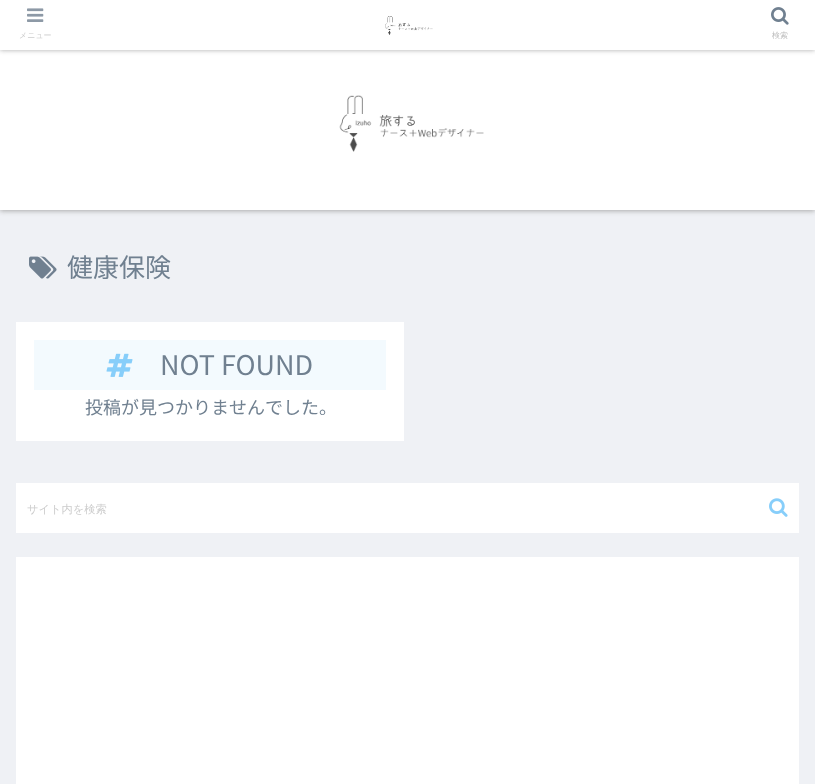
async function draw(canvas) {
  canvas.width = 815
  canvas.height = 784
  const ctx = canvas.getContext('2d')
  ctx.miterLimit = 4
  ctx.fontKerning = 'normal'
  async function loadImage(src) {
    const img = new Image()
    img.src = src
    await img.decode()
    return img
  }

  ctx.fillStyle = '#eff1f5'
  ctx.fillRect(0, 0, 815, 784)
  ctx.fillStyle = '#a9a9a9'
  ctx.filter = 'blur(2.5px)'
  ctx.beginPath()
  ctx.rect(0, 47, 815, 164)
  ctx.fill()
  ctx.filter = 'none'
  ctx.fillStyle = '#fff'
  ctx.fillRect(0, 50, 815, 160)
  ctx.fillStyle = '#a9a9a9'
  ctx.filter = 'blur(2.5px)'
  ctx.beginPath()
  ctx.rect(0, 0, 815, 50)
  ctx.fill()
  ctx.filter = 'none'
  ctx.fillStyle = '#fff'
  ctx.fillRect(0, 0, 815, 50)
  ctx.drawImage(await loadImage('image0.png'), 27, 8, 17, 14)
  ctx.font = '500 8px WenQuanYi Zen Hei'
  ctx.fillStyle = '#ccc'
  ctx.fillText('メニュー', 19, 38)
  ctx.drawImage(await loadImage('image1.png'), 385, 16, 48, 19)
  ctx.drawImage(await loadImage('image2.png'), 771, 7, 18, 18)
  ctx.fillStyle = '#bbb'
  ctx.fillText('検索', 772, 38)
  ctx.drawImage(await loadImage('image3.png'), 339, 95, 145, 57)
  ctx.drawImage(await loadImage('image4.png'), 29, 256, 28, 23)
  ctx.font = '100 26px Noto Sans JP'
  ctx.fillStyle = '#708090'
  ctx.fillText('健康保険', 67, 277)
  ctx.fillStyle = '#fff'
  ctx.fillRect(16, 322, 388, 119)
  ctx.fillStyle = '#f3fafe'
  ctx.fillRect(34, 340, 352, 50)
  ctx.drawImage(await loadImage('image5.png'), 106, 353, 27, 24)
  ctx.font = '100 27px Noto Sans JP'
  ctx.fillStyle = '#708090'
  ctx.fillText('NOT FOUND', 160, 375)
  ctx.font = '100 18px Noto Sans JP'
  ctx.fillText('投稿が見つかりませんでした。', 85, 414)
  ctx.fillStyle = '#fff'
  ctx.fillRect(16, 483, 783, 50)
  ctx.font = '500 11.25px WenQuanYi Zen Hei'
  ctx.fillStyle = '#ccc'
  ctx.fillText('サイト内を検索', 27, 513)
  ctx.drawImage(await loadImage('image6.png'), 769, 498, 19, 19)
  ctx.fillStyle = '#fff'
  ctx.fillRect(16, 557, 783, 227)
}

draw(document.querySelector('canvas'))
